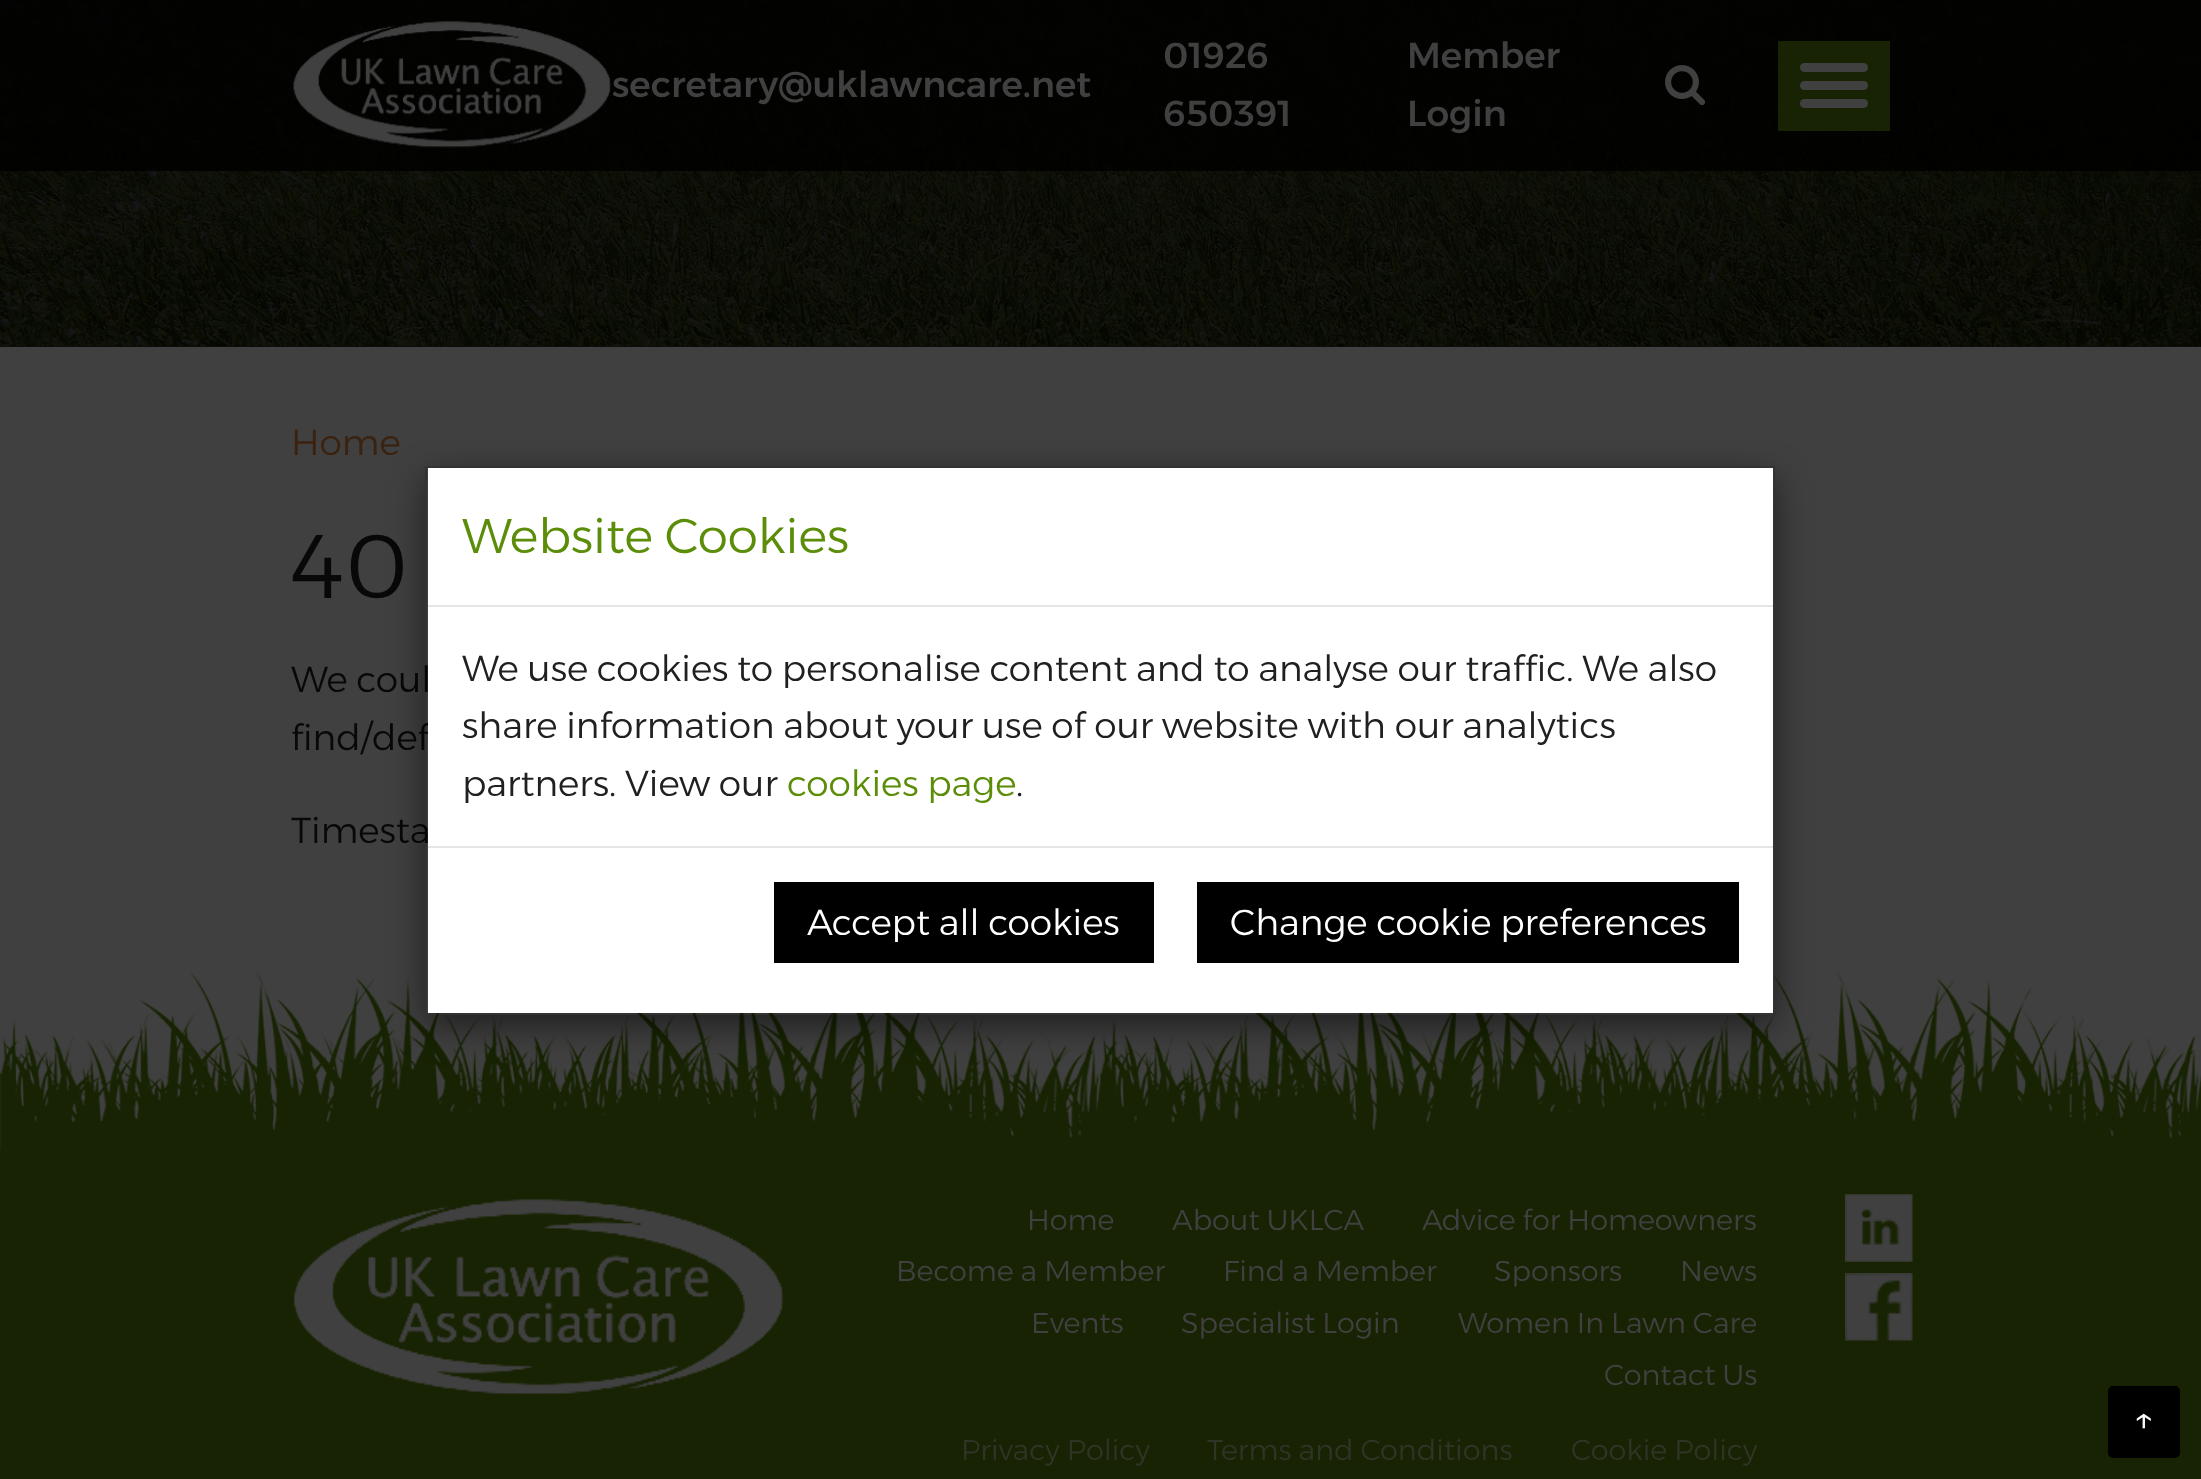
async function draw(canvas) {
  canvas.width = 2201
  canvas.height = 1479
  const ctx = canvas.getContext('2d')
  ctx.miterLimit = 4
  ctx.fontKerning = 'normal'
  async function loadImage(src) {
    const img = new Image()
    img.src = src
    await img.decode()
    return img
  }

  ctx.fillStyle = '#404040'
  ctx.fillRect(0, 0, 2201, 1479)
  ctx.drawImage(await loadImage('image2.png'), 0, 0, 2201, 346)
  ctx.fillStyle = '#000000cc'
  ctx.fillRect(0, 0, 2201, 171)
  ctx.drawImage(await loadImage('image0.png'), 293, 21, 318, 127)
  ctx.font = '500 36px Alexandria'
  ctx.fillStyle = '#404040'
  ctx.fillText('secretary@uklawncare.net', 612, 97)
  ctx.fillText('01926', 1163, 68)
  ctx.fillText('650391', 1163, 126)
  ctx.fillText('Member', 1407, 68)
  ctx.fillText('Login', 1407, 126)
  ctx.drawImage(await loadImage('image1.png'), 1665, 65, 41, 41)
  ctx.fillStyle = '#172302'
  ctx.fillRect(1778, 41, 112, 90)
  ctx.fillStyle = '#404040'
  ctx.beginPath()
  ctx.roundRect(1800, 63, 68, 9, 4.5)
  ctx.fill()
  ctx.beginPath()
  ctx.roundRect(1800, 81, 68, 9, 4.5)
  ctx.fill()
  ctx.beginPath()
  ctx.roundRect(1800, 99, 68, 9, 4.5)
  ctx.fill()
  ctx.fillStyle = '#0d0d0d'
  ctx.fillRect(0, 346, 2201, 1)
  ctx.font = '300 36px Alexandria'
  ctx.fillStyle = '#3b220f'
  ctx.fillText('Home', 291, 455)
  ctx.font = '300 90px Alexandria'
  ctx.fillStyle = '#080808'
  ctx.fillText('40', 291, 598)
  ctx.font = '300 36px Alexandria'
  ctx.fillText('We coul', 291, 692)
  ctx.fillText('find/def', 291, 750)
  ctx.fillText('Timesta', 291, 843)
  ctx.fillStyle = '#172302'
  ctx.fillRect(0, 1150, 2201, 329)
  ctx.fillStyle = '#000'
  ctx.beginPath()
  ctx.roundRect(2108, 1386, 72, 72, 5)
  ctx.fill()
  ctx.fillStyle = '#fff'
  ctx.fillText('↑', 2133, 1431)
  ctx.drawImage(await loadImage('image3.png'), 0, 972, 2201, 178)
  ctx.save()
  ctx.beginPath()
  ctx.moveTo(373, 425)
  ctx.lineTo(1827, 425)
  ctx.lineTo(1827, 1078)
  ctx.lineTo(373, 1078)
  ctx.closePath()
  ctx.moveTo(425, 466)
  ctx.lineTo(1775, 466)
  ctx.lineTo(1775, 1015)
  ctx.lineTo(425, 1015)
  ctx.closePath()
  ctx.clip('evenodd')
  ctx.fillStyle = '#00000080'
  ctx.filter = 'blur(17px)'
  ctx.beginPath()
  ctx.rect(425, 477, 1350, 549)
  ctx.fill()
  ctx.filter = 'none'
  ctx.restore()
  ctx.fillRect(428, 468, 1345, 545)
  ctx.strokeStyle = '#00000033'
  ctx.lineWidth = 2
  ctx.strokeRect(426, 467, 1348, 547)
  ctx.fillStyle = '#e5e5e5'
  ctx.fillRect(428, 605, 1345, 2)
  ctx.font = '300 48.5px Alexandria'
  ctx.fillStyle = '#5b8d09'
  ctx.fillText('Website Cookies', 462, 553)
  ctx.font = '300 36px Alexandria'
  ctx.fillStyle = '#202020'
  ctx.fillText('We use cookies to personalise content and to analyse our traffic. We also', 462, 681)
  ctx.fillText('share information about your use of our website with our analytics', 462, 738)
  ctx.fillText('partners. View our', 462, 796)
  ctx.fillStyle = '#5b8d09'
  ctx.fillText('cookies page', 787, 796)
  ctx.fillStyle = '#202020'
  ctx.fillText('.', 1016, 796)
  ctx.fillStyle = '#e5e5e5'
  ctx.fillRect(428, 846, 1345, 2)
  ctx.fillStyle = '#000'
  ctx.fillRect(774, 882, 380, 81)
  ctx.fillStyle = '#fff'
  ctx.fillText('Accept all cookies', 807, 935)
  ctx.fillStyle = '#000'
  ctx.fillRect(1197, 882, 542, 81)
  ctx.fillStyle = '#fff'
  ctx.fillText('Change cookie preferences', 1230, 935)
  ctx.drawImage(await loadImage('image4.png'), 293, 1199, 491, 197)
  ctx.font = '300 28.75px Alexandria'
  ctx.fillStyle = '#404040'
  ctx.fillText('Home', 1027, 1230)
  ctx.fillText('About UKLCA', 1172, 1230)
  ctx.fillText('Advice for Homeowners', 1422, 1230)
  ctx.fillText('Become a Member', 896, 1281)
  ctx.fillText('Find a Member', 1223, 1281)
  ctx.fillText('Sponsors', 1494, 1281)
  ctx.fillText('News', 1680, 1281)
  ctx.fillText('Events', 1031, 1333)
  ctx.fillText('Specialist Login', 1181, 1333)
  ctx.fillText('Women In Lawn Care', 1458, 1333)
  ctx.fillText('Contact Us', 1604, 1385)
  ctx.fillStyle = '#2f3427'
  ctx.fillText('Privacy Policy', 961, 1460)
  ctx.fillText('Terms and Conditions', 1207, 1460)
  ctx.fillText('Cookie Policy', 1571, 1460)
  ctx.drawImage(await loadImage('image5.png'), 1845, 1194, 68, 68)
  ctx.drawImage(await loadImage('image6.png'), 1845, 1273, 68, 68)
}

draw(document.querySelector('canvas'))
